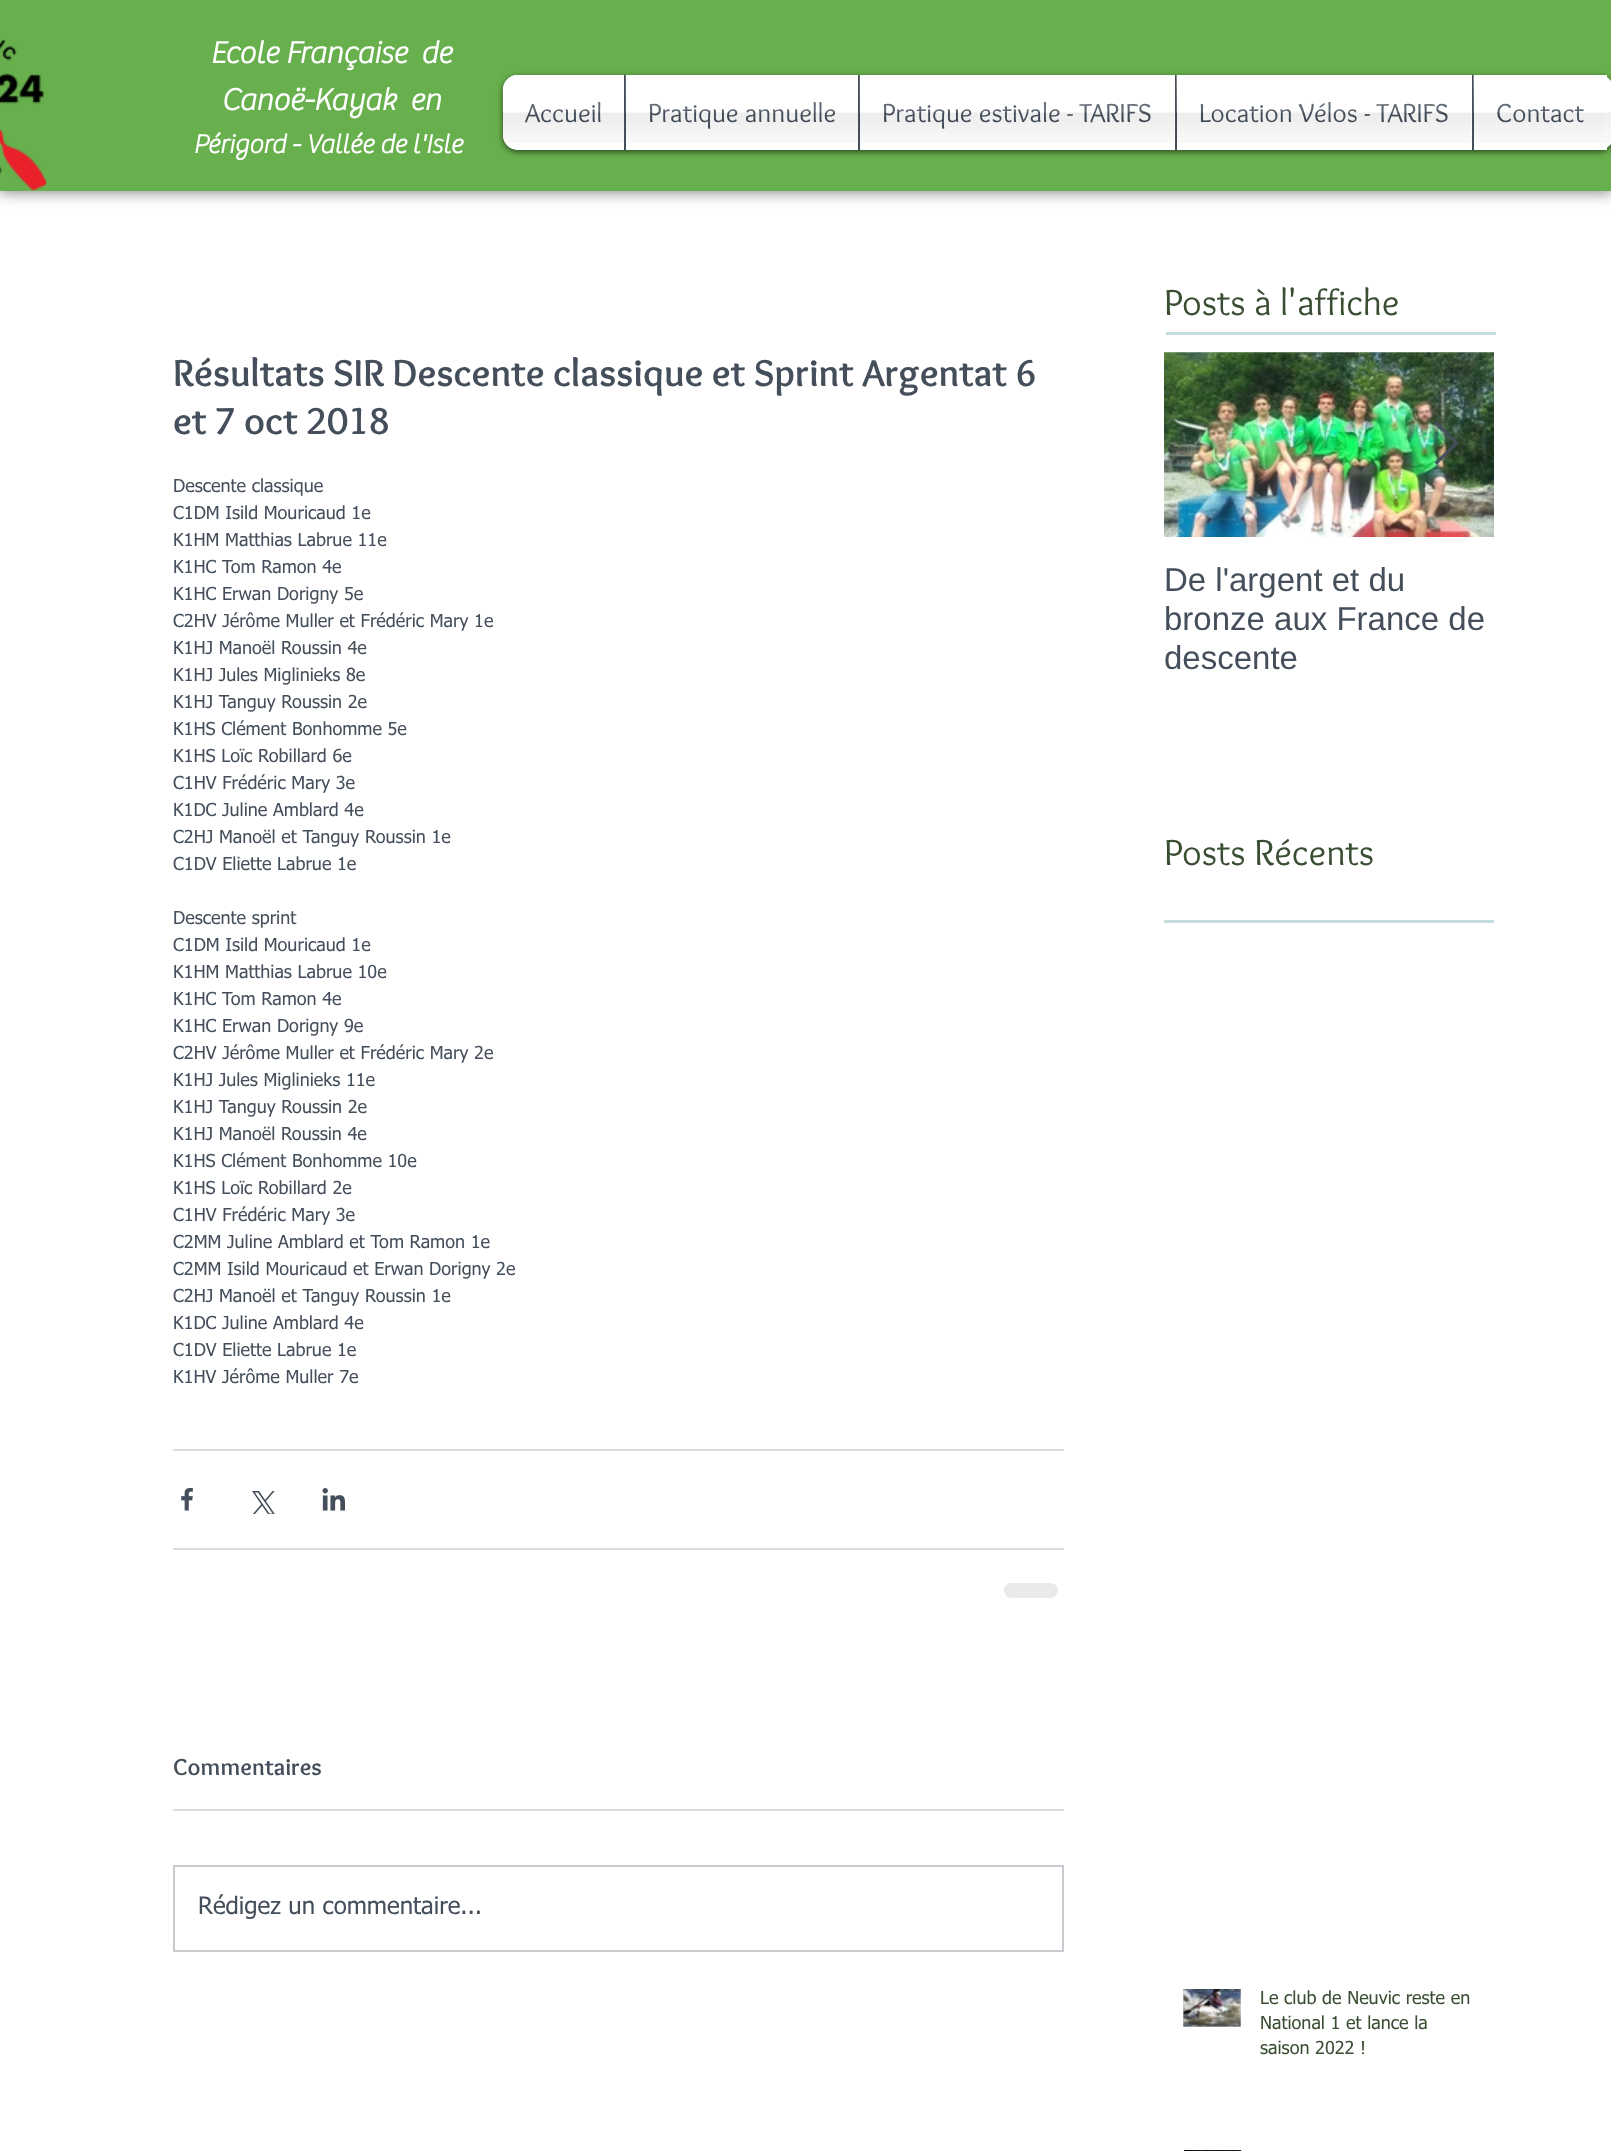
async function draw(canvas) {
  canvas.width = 1611
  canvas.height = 2151
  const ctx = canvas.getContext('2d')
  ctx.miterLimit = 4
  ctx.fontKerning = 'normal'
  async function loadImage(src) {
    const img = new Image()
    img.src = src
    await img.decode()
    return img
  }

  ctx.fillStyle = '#fff'
  ctx.fillRect(0, 0, 1611, 2151)
  ctx.fillStyle = '#00000080'
  ctx.filter = 'blur(7.5px)'
  ctx.beginPath()
  ctx.rect(-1, -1, 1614, 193)
  ctx.fill()
  ctx.filter = 'none'
  ctx.fillStyle = '#68b04d'
  ctx.fillRect(0, 0, 1611, 191)
  ctx.drawImage(await loadImage('image0.png'), 0, 39, 47, 152)
  ctx.font = 'bold 31.5px "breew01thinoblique"'
  ctx.fillStyle = '#fff'
  ctx.fillText('Ecole Française  de', 210, 63)
  ctx.fillText('Canoë-Kayak  en', 221, 110)
  ctx.font = 'bold 27px "breew01thinoblique"'
  ctx.fillText('Périgord - Vallée de l\'Isle', 193, 153)
  ctx.fillStyle = '#00000099'
  ctx.filter = 'blur(3px)'
  ctx.beginPath()
  ctx.roundRect(503, 77, 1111, 75, 15)
  ctx.fill()
  ctx.filter = 'none'
  ctx.fillStyle = '#fff'
  ctx.beginPath()
  ctx.roundRect(503, 75, 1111, 75, 15)
  ctx.fill()
  ctx.drawImage(await loadImage('image1.png'), 502, 75, 1109, 68)
  ctx.beginPath()
  ctx.roundRect(503, 75, 121, 75, [15, 0, 0, 15])
  ctx.fill()
  ctx.font = '27px Overlock'
  ctx.fillStyle = '#454f5c'
  ctx.fillText('Accueil', 525, 122)
  ctx.drawImage(await loadImage('image2.png'), 502, 75, 122, 68)
  ctx.fillStyle = '#fff'
  ctx.fillRect(626, 112, 232, 31)
  ctx.fillStyle = '#454f5c'
  ctx.fillRect(624, 75, 2, 75)
  ctx.fillText('Pratique annuelle', 648, 122)
  ctx.drawImage(await loadImage('image3.png'), 625, 75, 233, 68)
  ctx.fillStyle = '#fff'
  ctx.fillRect(860, 112, 315, 31)
  ctx.fillStyle = '#454f5c'
  ctx.fillRect(858, 75, 2, 75)
  ctx.fillText('Pratique estivale - TARIFS', 882, 122)
  ctx.drawImage(await loadImage('image4.png'), 859, 75, 316, 68)
  ctx.fillStyle = '#fff'
  ctx.fillRect(1177, 112, 295, 31)
  ctx.fillStyle = '#454f5c'
  ctx.fillRect(1175, 75, 2, 75)
  ctx.fillText('Location Vélos - TARIFS', 1199, 122)
  ctx.drawImage(await loadImage('image5.png'), 1176, 75, 296, 68)
  ctx.fillStyle = '#fff'
  ctx.fillRect(1474, 75, 133, 75)
  ctx.fillStyle = '#454f5c'
  ctx.fillRect(1472, 75, 2, 75)
  ctx.fillText('Contact', 1496, 122)
  ctx.drawImage(await loadImage('image6.png'), 1473, 75, 134, 68)
  ctx.font = '37.5px Overlock'
  ctx.fillStyle = '#394e32'
  ctx.fillText('Posts à l\'affiche', 1164, 315)
  ctx.fillStyle = '#c3dcde'
  ctx.fillRect(1166, 332, 330, 3)
  ctx.font = 'bold 39px Overlock'
  ctx.fillStyle = '#454f5c'
  ctx.fillText('Résultats SIR Descente classique et Sprint Argentat 6', 173, 386)
  ctx.fillText('et 7 oct 2018', 173, 434)
  ctx.font = '18px tahoma'
  ctx.fillText('Descente classique', 173, 492)
  ctx.fillText('C1DM Isild Mouricaud 1e', 173, 519)
  ctx.fillText('K1HM Matthias Labrue 11e', 173, 546)
  ctx.fillText('K1HC Tom Ramon 4e', 173, 573)
  ctx.fillText('K1HC Erwan Dorigny 5e', 173, 600)
  ctx.fillText('C2HV Jérôme Muller et Frédéric Mary 1e', 173, 627)
  ctx.fillText('K1HJ Manoël Roussin 4e', 173, 654)
  ctx.fillText('K1HJ Jules Miglinieks 8e', 173, 681)
  ctx.fillText('K1HJ Tanguy Roussin 2e', 173, 708)
  ctx.fillText('K1HS Clément Bonhomme 5e', 173, 735)
  ctx.fillText('K1HS Loïc Robillard 6e', 173, 762)
  ctx.fillText('C1HV Frédéric Mary 3e', 173, 789)
  ctx.fillText('K1DC Juline Amblard 4e', 173, 816)
  ctx.fillText('C2HJ Manoël et Tanguy Roussin 1e', 173, 843)
  ctx.fillText('C1DV Eliette Labrue 1e', 173, 870)
  ctx.fillText('Descente sprint', 173, 924)
  ctx.fillText('C1DM Isild Mouricaud 1e', 173, 951)
  ctx.fillText('K1HM Matthias Labrue 10e', 173, 978)
  ctx.fillText('K1HC Tom Ramon 4e', 173, 1005)
  ctx.fillText('K1HC Erwan Dorigny 9e', 173, 1032)
  ctx.fillText('C2HV Jérôme Muller et Frédéric Mary 2e', 173, 1059)
  ctx.fillText('K1HJ Jules Miglinieks 11e', 173, 1086)
  ctx.fillText('K1HJ Tanguy Roussin 2e', 173, 1113)
  ctx.fillText('K1HJ Manoël Roussin 4e', 173, 1140)
  ctx.fillText('K1HS Clément Bonhomme 10e', 173, 1167)
  ctx.fillText('K1HS Loïc Robillard 2e', 173, 1194)
  ctx.fillText('C1HV Frédéric Mary 3e', 173, 1221)
  ctx.fillText('C2MM Juline Amblard et Tom Ramon 1e', 173, 1248)
  ctx.fillText('C2MM Isild Mouricaud et Erwan Dorigny 2e', 173, 1275)
  ctx.fillText('C2HJ Manoël et Tanguy Roussin 1e', 173, 1302)
  ctx.fillText('K1DC Juline Amblard 4e', 173, 1329)
  ctx.fillText('C1DV Eliette Labrue 1e', 173, 1356)
  ctx.fillText('K1HV Jérôme Muller 7e', 173, 1383)
  ctx.fillStyle = '#dadcde'
  ctx.fillRect(173, 1449, 891, 2)
  ctx.drawImage(await loadImage('image7.png'), 181, 1488, 12, 23)
  ctx.drawImage(await loadImage('image8.png'), 252, 1491, 23, 23)
  ctx.drawImage(await loadImage('image9.png'), 322, 1488, 23, 23)
  ctx.fillRect(173, 1548, 891, 2)
  ctx.fillStyle = '#e9eaeb'
  ctx.beginPath()
  ctx.roundRect(1004, 1583, 54, 15, 7.5)
  ctx.fill()
  ctx.font = 'bold 24px Overlock'
  ctx.fillStyle = '#454f5c'
  ctx.fillText('Commentaires', 173, 1775)
  ctx.fillStyle = '#dadcde'
  ctx.fillRect(173, 1809, 891, 2)
  ctx.strokeStyle = '#c7cace'
  ctx.lineWidth = 2
  ctx.strokeRect(174, 1866, 889, 85)
  ctx.font = '24px tahoma'
  ctx.fillStyle = '#454f5c'
  ctx.fillText('Rédigez un commentaire...', 198, 1914)
  ctx.drawImage(await loadImage('image10.png'), 1164, 352, 330, 1)
  ctx.drawImage(await loadImage('image11.png'), 1164, 352, 330, 185)
  ctx.fillStyle = '#454f5ce6'
  ctx.beginPath()
  ctx.moveTo(1435, 424)
  ctx.lineTo(1437, 422)
  ctx.lineTo(1458, 443)
  ctx.lineTo(1437, 464)
  ctx.lineTo(1435, 462)
  ctx.lineTo(1455, 443)
  ctx.closePath()
  ctx.fill()
  ctx.beginPath()
  ctx.moveTo(1435.5, 423.5)
  ctx.lineTo(1437, 422)
  ctx.lineTo(1458.5, 443)
  ctx.lineTo(1437, 464)
  ctx.lineTo(1435.5, 462.5)
  ctx.lineTo(1455, 443)
  ctx.closePath()
  ctx.strokeStyle = '#454f5ce6'
  ctx.lineWidth = 1.2
  ctx.stroke()
  ctx.font = '33px Liberation Sans'
  ctx.fillStyle = '#454f5c'
  ctx.fillText('De l\'argent et du', 1164, 591)
  ctx.fillText('bronze aux France de', 1164, 630)
  ctx.fillText('descente', 1164, 669)
  ctx.font = '37.5px Overlock'
  ctx.fillStyle = '#394e32'
  ctx.fillText('Posts Récents', 1164, 865)
  ctx.fillStyle = '#c3dcde'
  ctx.fillRect(1164, 920, 330, 3)
  ctx.drawImage(await loadImage('image12.png'), 1183, 1989, 58, 38)
  ctx.drawImage(await loadImage('image13.png'), 1183, 1989, 58, 38)
  ctx.font = '18px tahoma'
  ctx.fillStyle = '#394e32'
  ctx.fillText('Le club de Neuvic reste en', 1260, 2004)
  ctx.fillText('National 1 et lance la', 1260, 2029)
  ctx.fillText('saison 2022 !', 1260, 2054)
  ctx.drawImage(await loadImage('image14.png'), 1184, 2150, 57, 1)
}

draw(document.querySelector('canvas'))
